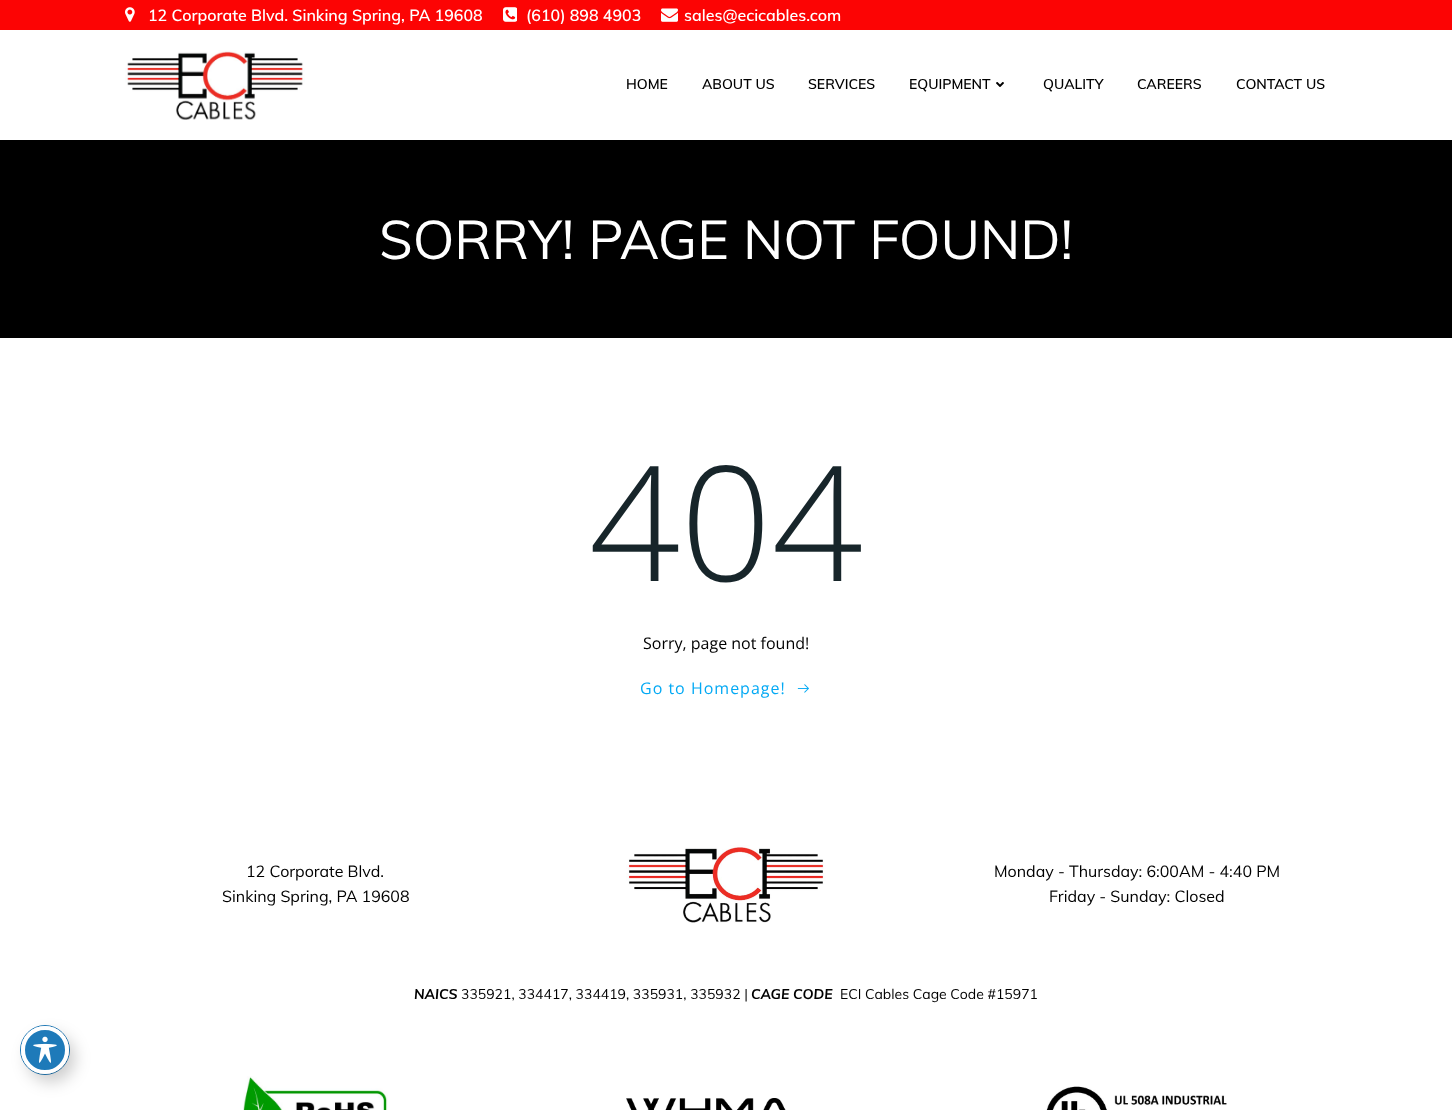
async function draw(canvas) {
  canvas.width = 1452
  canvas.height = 1110
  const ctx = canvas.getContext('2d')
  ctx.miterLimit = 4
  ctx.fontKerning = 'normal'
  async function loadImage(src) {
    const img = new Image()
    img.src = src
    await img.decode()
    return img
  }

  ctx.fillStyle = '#fff'
  ctx.fillRect(0, 0, 1452, 1110)
  ctx.fillStyle = '#fc0404'
  ctx.fillRect(0, 0, 1452, 30)
  ctx.drawImage(await loadImage('image0.png'), 125, 7, 10, 15)
  ctx.font = '600 16px Muli'
  ctx.fillStyle = '#fff'
  ctx.fillText('12 Corporate Blvd. Sinking Spring, PA 19608', 148, 21)
  ctx.drawImage(await loadImage('image1.png'), 503, 7, 14, 15)
  ctx.fillText('(610) 898 4903', 526, 21)
  ctx.drawImage(await loadImage('image2.png'), 661, 8, 17, 14)
  ctx.fillText('sales@ecicables.com', 684, 21)
  ctx.drawImage(await loadImage('image3.png'), 125, 50, 180, 70)
  ctx.font = '600 14px Muli'
  ctx.fillStyle = '#000'
  ctx.fillText('HOME', 626, 89)
  ctx.fillText('ABOUT US', 702, 89)
  ctx.fillText('SERVICES', 808, 89)
  ctx.fillText('EQUIPMENT', 909, 89)
  ctx.drawImage(await loadImage('image4.png'), 996, 82, 8, 5)
  ctx.fillText('QUALITY', 1043, 89)
  ctx.fillText('CAREERS', 1137, 89)
  ctx.fillText('CONTACT US', 1236, 89)
  ctx.fillRect(0, 140, 1452, 198)
  ctx.font = '54px Muli'
  ctx.fillStyle = '#fff'
  ctx.fillText('SORRY! PAGE NOT FOUND!', 379, 259)
  ctx.font = '300 160px Open Sans'
  ctx.fillStyle = '#17252a'
  ctx.fillText('404', 589, 581)
  ctx.font = '16px Open Sans'
  ctx.fillStyle = '#000'
  ctx.fillText('Sorry, page not found!', 643, 649)
  ctx.letterSpacing = '1px'
  ctx.fillStyle = '#03a9f4'
  ctx.fillText('Go to Homepage!', 640, 694)
  ctx.drawImage(await loadImage('image5.png'), 797, 684, 12, 9)
  ctx.letterSpacing = '0px'
  ctx.font = '16px Muli'
  ctx.fillStyle = '#000'
  ctx.fillText('12 Corporate Blvd.', 246, 877)
  ctx.fillText('Sinking Spring, PA 19608', 222, 902)
  ctx.drawImage(await loadImage('image6.png'), 626, 845, 200, 78)
  ctx.fillText('Monday - Thursday: 6:00AM - 4:40 PM', 994, 877)
  ctx.fillText('Friday - Sunday: Closed', 1049, 902)
  ctx.font = 'italic bold 14px Muli'
  ctx.fillText('NAICS', 414, 999)
  ctx.font = '14px Muli'
  ctx.fillText('335921, 334417, 334419, 335931, 335932 |', 461, 999)
  ctx.font = 'italic bold 14px Muli'
  ctx.fillText('CAGE CODE', 751, 999)
  ctx.font = '14px Muli'
  ctx.fillText('ECI Cables Cage Code #15971', 840, 999)
  ctx.drawImage(await loadImage('image7.png'), 243, 1076, 145, 34)
  ctx.drawImage(await loadImage('image8.png'), 626, 1098, 160, 12)
  ctx.drawImage(await loadImage('image9.png'), 1046, 1086, 181, 24)
  ctx.beginPath()
  ctx.arc(45, 1050, 24.5, 0, 2 * Math.PI)
  ctx.strokeStyle = '#1e7ab9'
  ctx.stroke()
  ctx.fillStyle = '#00000033'
  ctx.filter = 'blur(8px)'
  ctx.beginPath()
  ctx.roundRect(27, 1034, 48, 48, 24)
  ctx.fill()
  ctx.filter = 'none'
  ctx.fillStyle = '#1e7ab9'
  ctx.beginPath()
  ctx.arc(45, 1050, 22, 0, 2 * Math.PI)
  ctx.fill()
  ctx.strokeStyle = '#fff'
  ctx.lineWidth = 4
  ctx.stroke()
  ctx.drawImage(await loadImage('image10.png'), 33, 1036, 24, 27)
}

draw(document.querySelector('canvas'))
